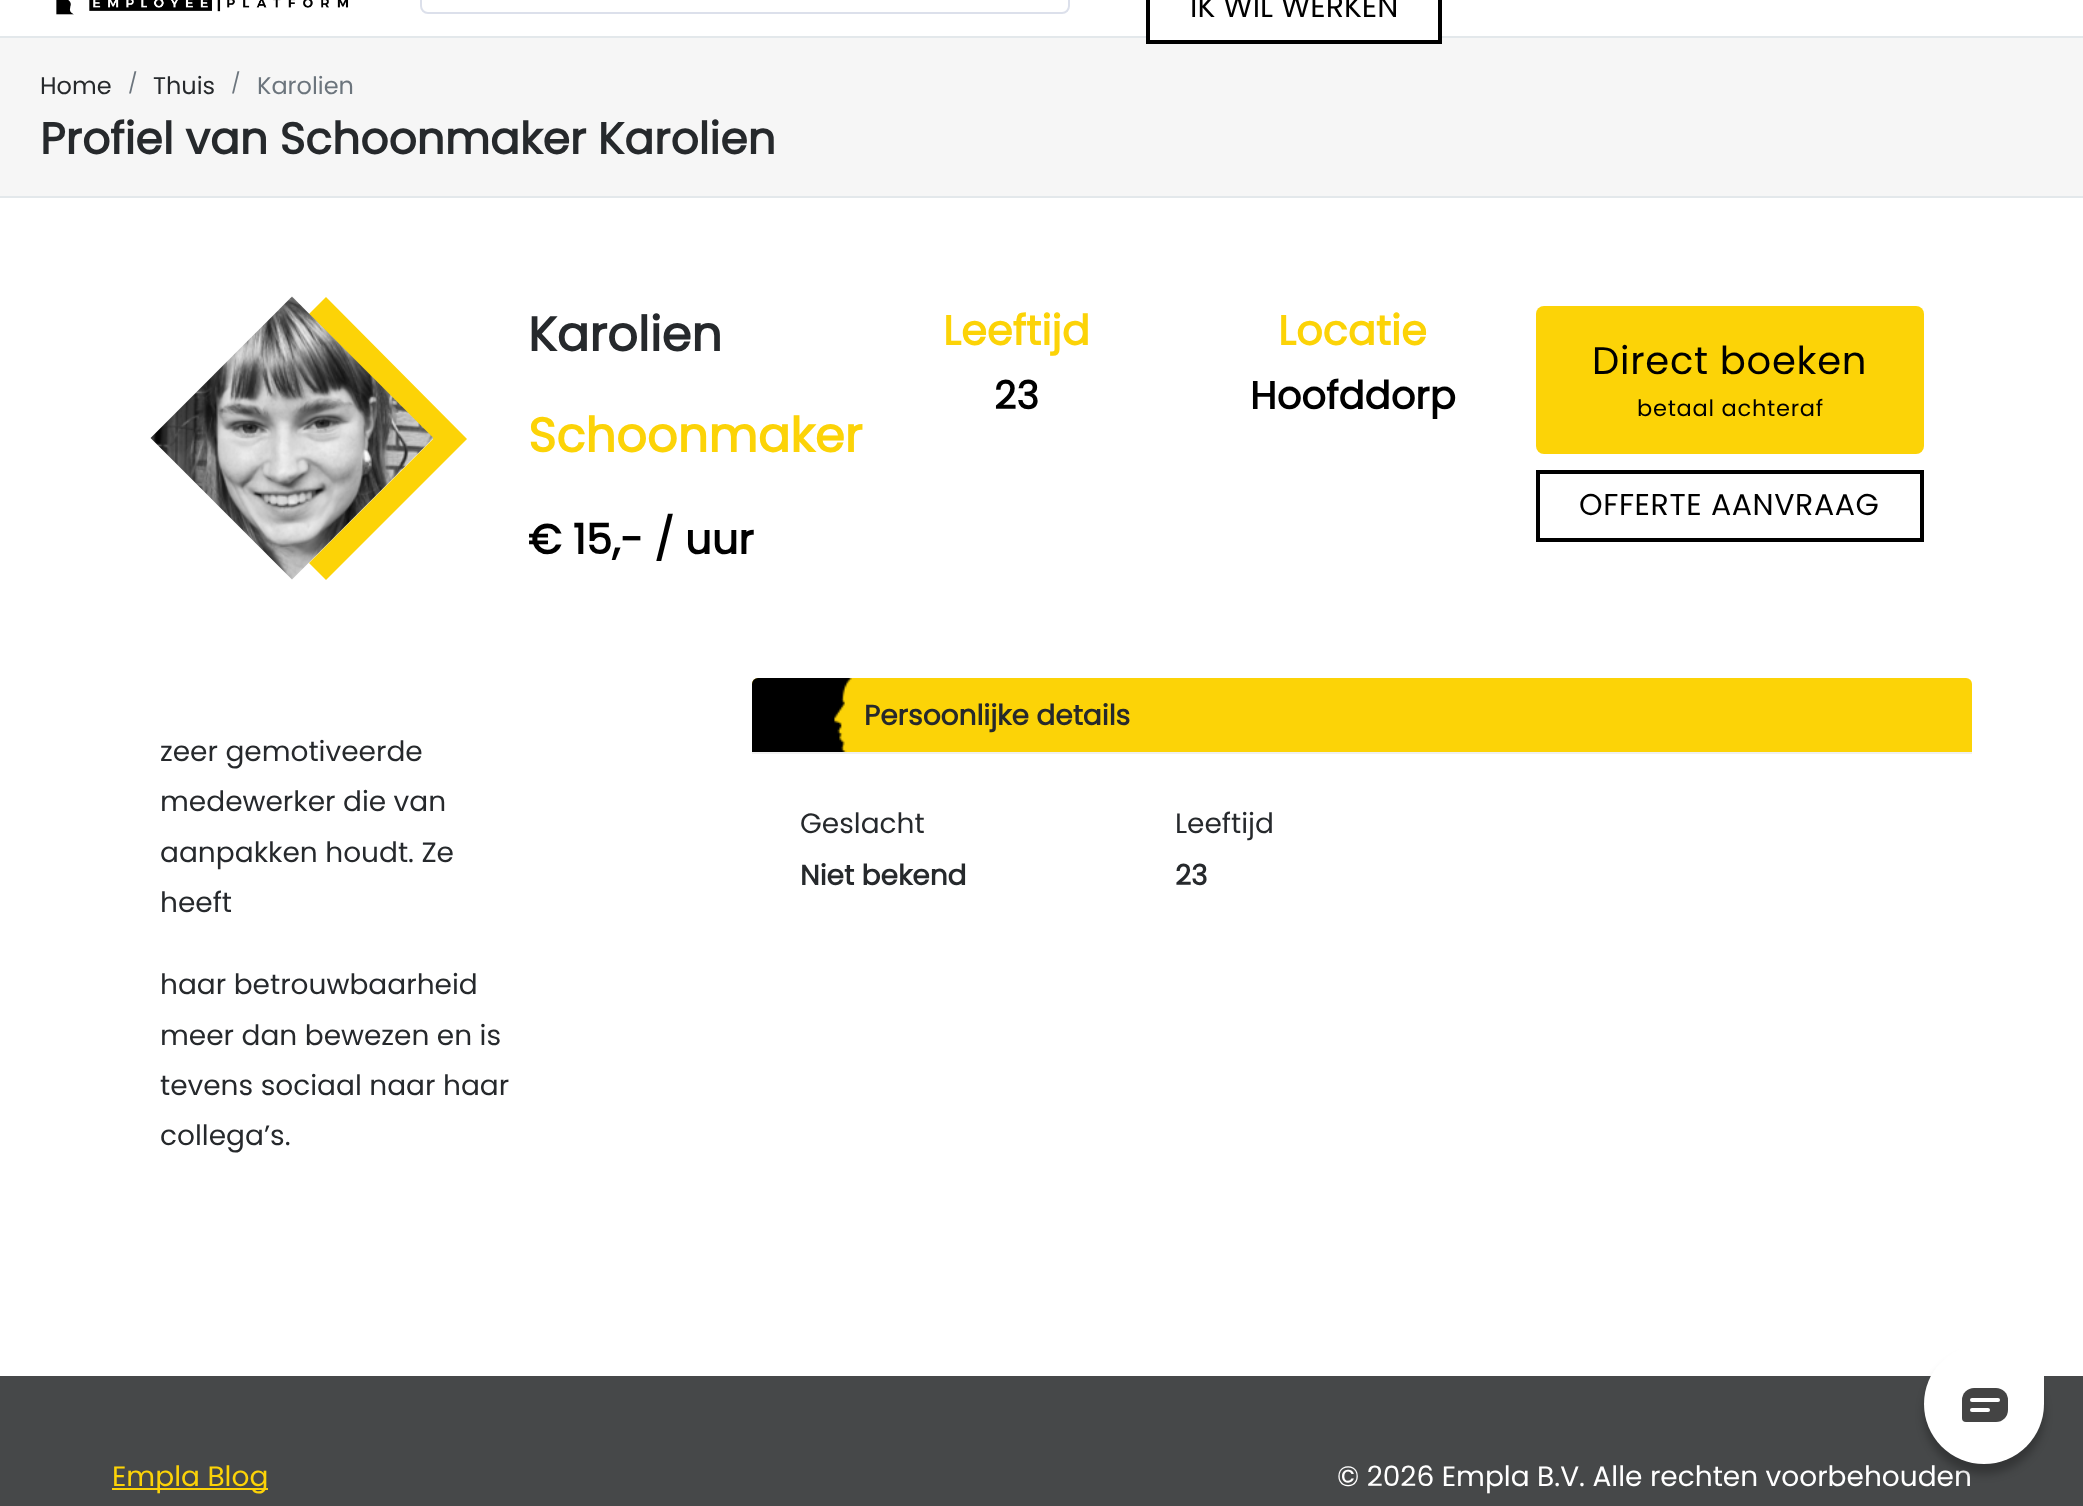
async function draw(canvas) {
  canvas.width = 2083
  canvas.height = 1506
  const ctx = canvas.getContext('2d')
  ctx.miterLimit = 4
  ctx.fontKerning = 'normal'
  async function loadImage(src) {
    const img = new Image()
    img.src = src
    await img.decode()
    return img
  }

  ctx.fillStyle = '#fff'
  ctx.fillRect(0, 0, 2083, 1506)
  ctx.fillStyle = '#e3e8eb'
  ctx.fillRect(0, 36, 2083, 2)
  ctx.drawImage(await loadImage('image0.png'), 56, 0, 293, 15)
  ctx.beginPath()
  ctx.roundRect(421, -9, 648, 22, 7)
  ctx.strokeStyle = '#dce0eb'
  ctx.lineWidth = 2
  ctx.stroke()
  ctx.fillStyle = '#f6f6f6'
  ctx.fillRect(0, 38, 2083, 158)
  ctx.fillStyle = '#fff'
  ctx.fillRect(1150, 36, 288, 4)
  ctx.strokeStyle = '#000'
  ctx.lineWidth = 4
  ctx.strokeRect(1148, -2, 292, 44)
  ctx.font = '30px Poppins'
  ctx.fillStyle = '#000'
  ctx.fillText('IK WIL WERKEN', 1190, 17)
  ctx.fillStyle = '#e3e8eb'
  ctx.fillRect(0, 196, 2083, 2)
  ctx.font = '24px Poppins'
  ctx.fillStyle = '#26292c'
  ctx.fillText('Home', 40, 94)
  ctx.font = '20px Poppins'
  ctx.fillStyle = '#6c757d'
  ctx.fillText('/', 128, 90)
  ctx.font = '24px Poppins'
  ctx.fillStyle = '#26292c'
  ctx.fillText('Thuis', 153, 94)
  ctx.font = '20px Poppins'
  ctx.fillStyle = '#6c757d'
  ctx.fillText('/', 231, 90)
  ctx.font = '24px Poppins'
  ctx.fillText('Karolien', 257, 94)
  ctx.font = 'bold 44px Poppins'
  ctx.fillStyle = '#26292c'
  ctx.fillText('Profiel van Schoonmaker Karolien', 40, 154)
  ctx.fillStyle = '#fcd307'
  ctx.beginPath()
  ctx.moveTo(326, 297)
  ctx.lineTo(309, 314)
  ctx.lineTo(433, 439)
  ctx.lineTo(309, 563)
  ctx.lineTo(326, 580)
  ctx.lineTo(467, 439)
  ctx.closePath()
  ctx.fill()
  ctx.drawImage(await loadImage('image1.png'), 150, 296, 284, 284)
  ctx.font = 'bold 48px Poppins'
  ctx.fillStyle = '#26292c'
  ctx.fillText('Karolien', 528, 351)
  ctx.fillStyle = '#fcd307'
  ctx.fillText('Schoonmaker', 528, 452)
  ctx.font = 'bold 41.5px Poppins'
  ctx.fillStyle = '#000'
  ctx.fillText('€ 15,- / uur', 528, 554)
  ctx.fillStyle = '#fcd307'
  ctx.fillText('Leeftijd', 943, 345)
  ctx.font = 'bold 38.5px Poppins'
  ctx.fillStyle = '#000'
  ctx.fillText('23', 994, 409)
  ctx.font = 'bold 41.5px Poppins'
  ctx.fillStyle = '#fcd307'
  ctx.fillText('Locatie', 1278, 345)
  ctx.font = 'bold 38.5px Poppins'
  ctx.fillStyle = '#000'
  ctx.fillText('Hoofddorp', 1250, 409)
  ctx.fillStyle = '#fcd307'
  ctx.beginPath()
  ctx.roundRect(1536, 306, 388, 148, 8)
  ctx.fill()
  ctx.letterSpacing = '0.75px'
  ctx.font = '38.5px Poppins'
  ctx.fillStyle = '#000'
  ctx.fillText('Direct boeken', 1592, 374)
  ctx.font = '22.5px Poppins'
  ctx.fillText('betaal achteraf', 1637, 416)
  ctx.strokeRect(1538, 472, 384, 68)
  ctx.letterSpacing = '0.6px'
  ctx.font = '30px Poppins'
  ctx.fillText('OFFERTE AANVRAAG', 1579, 515)
  ctx.letterSpacing = '0px'
  ctx.font = '28px Poppins'
  ctx.fillStyle = '#26292c'
  ctx.fillText('zeer gemotiveerde', 160, 761)
  ctx.fillText('medewerker die van', 160, 811)
  ctx.fillText('aanpakken houdt. Ze', 160, 862)
  ctx.fillText('heeft', 160, 912)
  ctx.fillText('haar betrouwbaarheid', 160, 994)
  ctx.fillText('meer dan bewezen en is', 160, 1045)
  ctx.fillText('tevens sociaal naar haar', 160, 1095)
  ctx.fillText('collega’s.', 160, 1145)
  ctx.fillStyle = '#fcd307'
  ctx.beginPath()
  ctx.roundRect(752, 678, 1220, 76, [6, 6, 0, 0])
  ctx.fill()
  ctx.drawImage(await loadImage('image2.png'), 752, 678, 100, 74)
  ctx.fillStyle = '#f0f0f0'
  ctx.fillRect(752, 752, 1220, 2)
  ctx.font = 'bold 28px Poppins'
  ctx.fillStyle = '#26292c'
  ctx.fillText('Persoonlijke details', 864, 725)
  ctx.font = '28px Poppins'
  ctx.fillText('Geslacht', 800, 833)
  ctx.font = 'bold 28px Poppins'
  ctx.fillText('Niet bekend', 800, 885)
  ctx.font = '28px Poppins'
  ctx.fillText('Leeftijd', 1175, 833)
  ctx.font = 'bold 28px Poppins'
  ctx.fillText('23', 1175, 885)
  ctx.fillStyle = '#464849'
  ctx.fillRect(0, 1376, 2083, 130)
  ctx.fillStyle = '#fcd307'
  ctx.fillRect(112, 1488, 156, 2)
  ctx.font = '28px Poppins'
  ctx.fillText('Empla Blog', 112, 1486)
  ctx.fillStyle = '#fff'
  ctx.fillText('© 2026 Empla B.V. Alle rechten voorbehouden', 1337, 1486)
  ctx.fillStyle = '#00000042'
  ctx.filter = 'blur(4px)'
  ctx.beginPath()
  ctx.roundRect(1924, 1354, 120, 120, 60)
  ctx.fill()
  ctx.filter = 'none'
  ctx.fillStyle = '#fff'
  ctx.beginPath()
  ctx.roundRect(1924, 1344, 120, 120, [60, 14, 60, 60])
  ctx.fill()
  ctx.fillStyle = '#444'
  ctx.beginPath()
  ctx.roundRect(1962, 1388, 46, 34, [12, 12, 12, 4])
  ctx.fill()
  ctx.fillStyle = '#fff'
  ctx.beginPath()
  ctx.roundRect(1970, 1398, 30, 4, 2)
  ctx.fill()
  ctx.beginPath()
  ctx.roundRect(1970, 1408, 20, 4, 2)
  ctx.fill()
}

draw(document.querySelector('canvas'))
